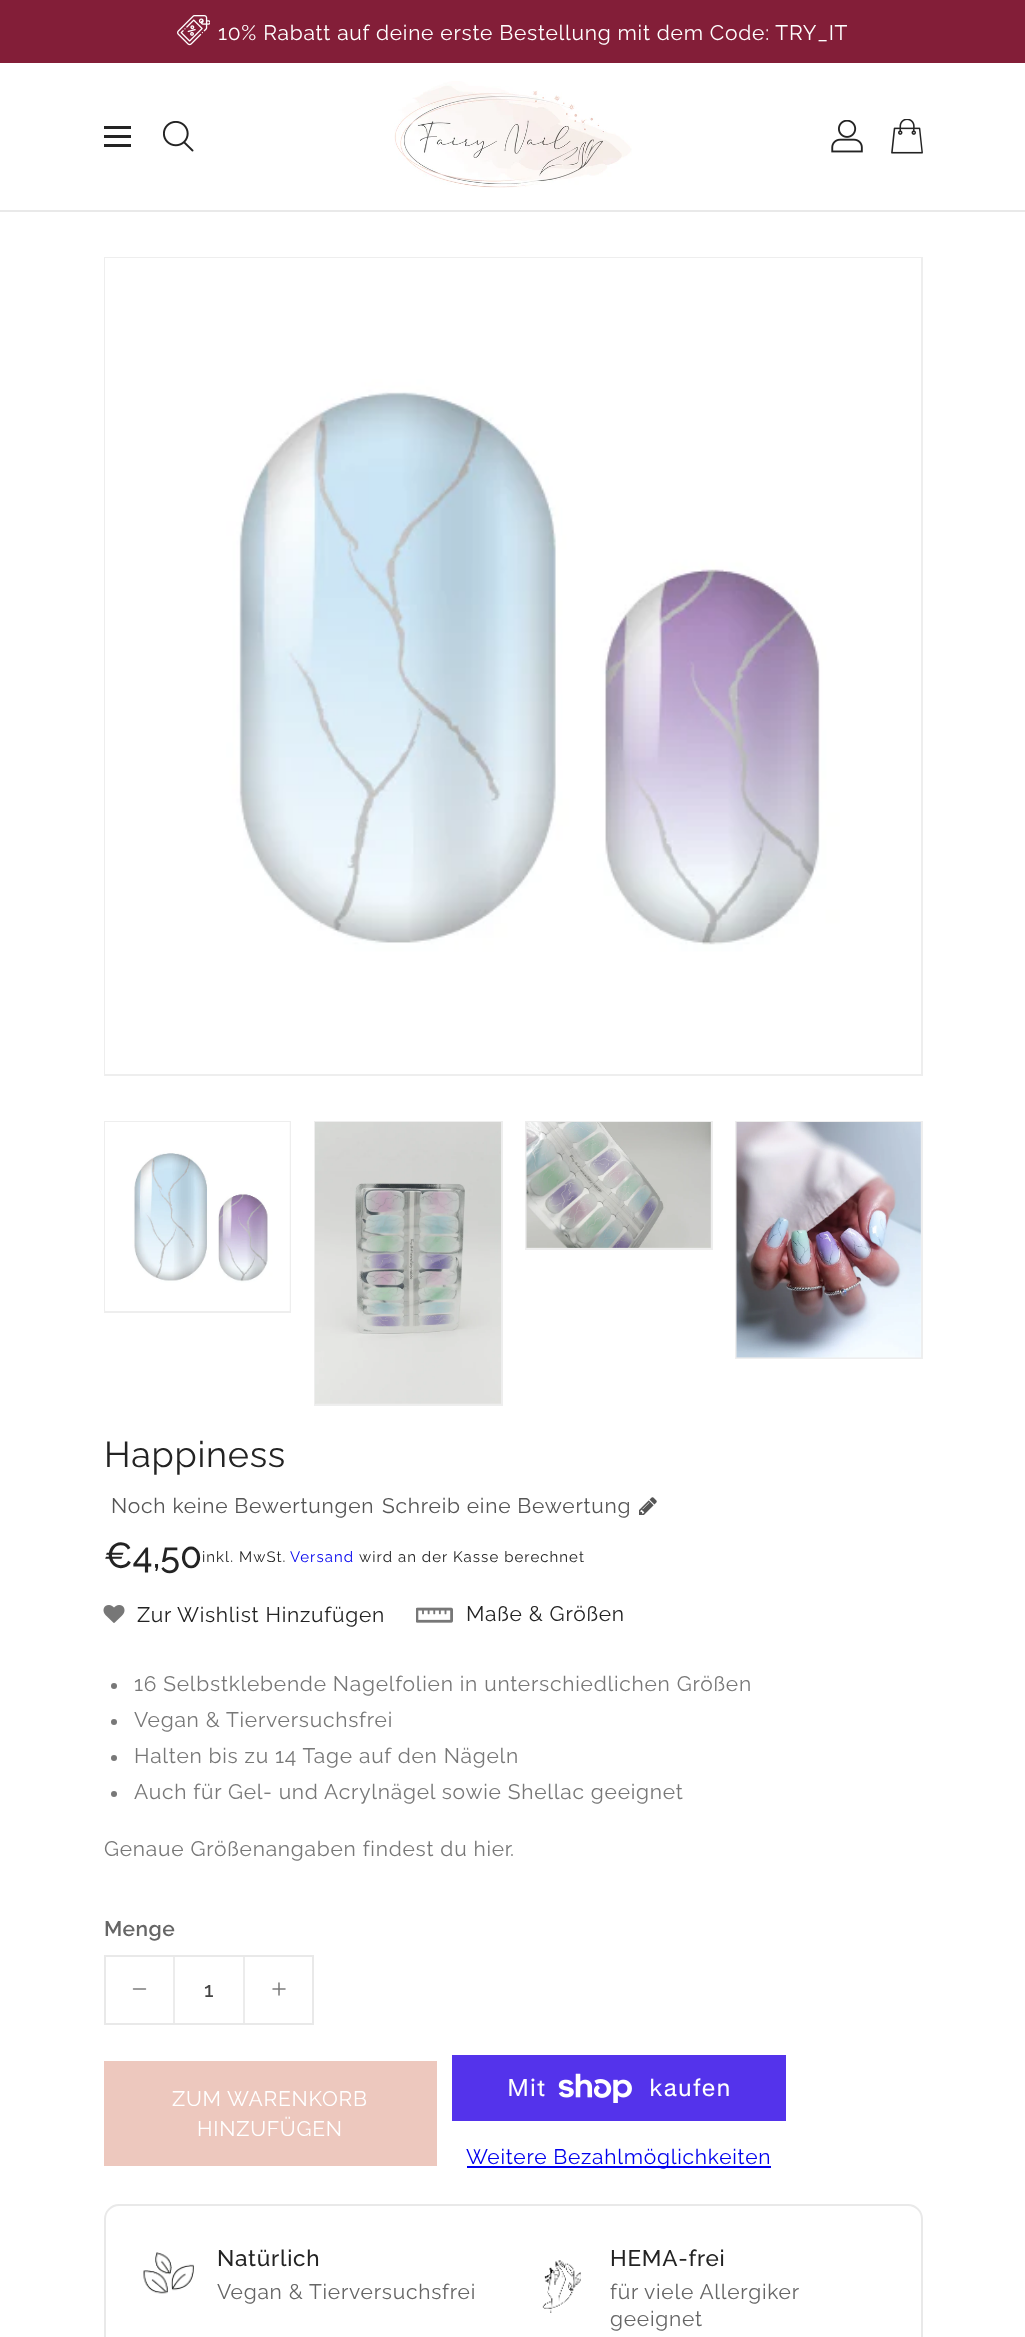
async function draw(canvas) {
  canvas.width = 1025
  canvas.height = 2337
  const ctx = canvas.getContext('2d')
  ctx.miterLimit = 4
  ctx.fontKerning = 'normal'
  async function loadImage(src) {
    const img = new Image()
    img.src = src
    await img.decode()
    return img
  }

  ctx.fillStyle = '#fff'
  ctx.fillRect(0, 0, 1025, 2337)
  ctx.fillStyle = '#831e38'
  ctx.fillRect(0, 0, 1025, 63)
  ctx.drawImage(await loadImage('image0.png'), 177, 15, 33, 31)
  ctx.letterSpacing = '0.75px'
  ctx.font = '21px Raleway'
  ctx.fillStyle = '#fff'
  ctx.fillText('10% Rabatt auf deine erste Bestellung mit dem Code: TRY_IT', 218, 40)
  ctx.fillStyle = '#e9e9e9'
  ctx.fillRect(0, 210, 1025, 2)
  ctx.fillStyle = '#232323'
  ctx.fillRect(104, 126, 27, 3)
  ctx.fillRect(104, 135, 27, 3)
  ctx.fillRect(104, 144, 27, 3)
  ctx.drawImage(await loadImage('image1.png'), 163, 121, 31, 31)
  ctx.drawImage(await loadImage('image2.png'), 394, 81, 238, 107)
  ctx.drawImage(await loadImage('image3.png'), 831, 120, 32, 33)
  ctx.drawImage(await loadImage('image4.png'), 891, 119, 32, 35)
  ctx.strokeStyle = '#eee'
  ctx.lineWidth = 2
  ctx.strokeRect(105, 258, 817, 817)
  ctx.drawImage(await loadImage('image5.png'), 105, 258, 816, 816)
  ctx.strokeRect(105, 1122, 185, 190)
  ctx.drawImage(await loadImage('image6.png'), 105, 1122, 185, 189)
  ctx.strokeRect(315, 1122, 187, 283)
  ctx.drawImage(await loadImage('image7.png'), 315, 1122, 186, 282)
  ctx.strokeRect(526, 1122, 186, 127)
  ctx.drawImage(await loadImage('image8.png'), 526, 1122, 185, 126)
  ctx.strokeRect(736, 1122, 186, 236)
  ctx.drawImage(await loadImage('image9.png'), 736, 1122, 185, 236)
  ctx.font = '36px Raleway'
  ctx.fillText('Happiness', 104, 1467)
  ctx.font = '21px Raleway'
  ctx.fillStyle = '#555'
  ctx.fillText('Noch keine Bewertungen', 111, 1513)
  ctx.fillText('Schreib eine Bewertung', 382, 1513)
  ctx.drawImage(await loadImage('image10.png'), 639, 1497, 18, 18)
  ctx.letterSpacing = '0px'
  ctx.font = '500 36px Raleway'
  ctx.fillStyle = '#232323'
  ctx.fillText('€4,50', 104, 1568)
  ctx.letterSpacing = '1.05px'
  ctx.font = '15px Raleway'
  ctx.fillText('inkl. MwSt.', 202, 1562)
  ctx.fillStyle = '#00e'
  ctx.fillText('Versand', 290, 1562)
  ctx.fillStyle = '#232323'
  ctx.fillText('wird an der Kasse berechnet', 359, 1562)
  ctx.drawImage(await loadImage('image11.png'), 103, 1605, 22, 18)
  ctx.letterSpacing = '0.75px'
  ctx.font = '21px Raleway'
  ctx.fillText('Zur Wishlist Hinzufügen', 137, 1622)
  ctx.drawImage(await loadImage('image12.png'), 416, 1607, 37, 16)
  ctx.fillText('Maße & Größen', 466, 1621)
  ctx.fillStyle = '#787878'
  ctx.beginPath()
  ctx.arc(114, 1686, 3, 0, 2 * Math.PI)
  ctx.fill()
  ctx.fillText('16 Selbstklebende Nagelfolien in unterschiedlichen Größen', 134, 1691)
  ctx.beginPath()
  ctx.arc(114, 1722, 3, 0, 2 * Math.PI)
  ctx.fill()
  ctx.fillText('Vegan & Tierversuchsfrei', 134, 1727)
  ctx.beginPath()
  ctx.arc(114, 1758, 3, 0, 2 * Math.PI)
  ctx.fill()
  ctx.fillText('Halten bis zu 14 Tage auf den Nägeln', 134, 1763)
  ctx.beginPath()
  ctx.arc(114, 1794, 3, 0, 2 * Math.PI)
  ctx.fill()
  ctx.fillText('Auch für Gel- und Acrylnägel sowie Shellac geeignet', 134, 1799)
  ctx.fillText('Genaue Größenangaben findest du hier', 104, 1856)
  ctx.fillText('.', 510, 1856)
  ctx.letterSpacing = '0.5px'
  ctx.font = '600 21px Raleway'
  ctx.fillStyle = '#666'
  ctx.fillText('Menge', 104, 1936)
  ctx.strokeStyle = '#e9e9e9'
  ctx.strokeRect(105, 1956, 208, 68)
  ctx.drawImage(await loadImage('image13.png'), 132, 1988, 15, 2)
  ctx.fillStyle = '#e9e9e9d9'
  ctx.fillRect(243, 1956, 2, 68)
  ctx.fillRect(173, 1956, 2, 68)
  ctx.letterSpacing = '0px'
  ctx.font = '500 21px Raleway'
  ctx.fillStyle = '#444'
  ctx.fillText('1', 204, 1997)
  ctx.drawImage(await loadImage('image14.png'), 272, 1982, 14, 14)
  ctx.fillStyle = '#edc8be'
  ctx.fillRect(104, 2061, 333, 105)
  ctx.letterSpacing = '0.75px'
  ctx.font = '21px Raleway'
  ctx.fillStyle = '#fff'
  ctx.fillText('ZUM WARENKORB', 172, 2106)
  ctx.fillText('HINZUFÜGEN', 197, 2136)
  ctx.fillStyle = '#5433eb'
  ctx.fillRect(452, 2055, 334, 66)
  ctx.font = '24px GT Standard'
  ctx.fillStyle = '#fff'
  ctx.fillText('Mit', 507, 2096)
  ctx.drawImage(await loadImage('image15.png'), 558, 2073, 74, 30)
  ctx.fillText('kaufen', 649, 2096)
  ctx.fillStyle = '#00e'
  ctx.fillRect(467, 2166, 304, 2)
  ctx.font = '21px Raleway'
  ctx.fillText('Weitere Bezahlmöglichkeiten', 466, 2164)
  ctx.beginPath()
  ctx.roundRect(105, 2205, 817, 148, 14)
  ctx.stroke()
  ctx.drawImage(await loadImage('image16.png'), 143, 2252, 51, 42)
  ctx.font = '500 22.5px Raleway'
  ctx.fillStyle = '#232323'
  ctx.fillText('Natürlich', 217, 2266)
  ctx.font = '21px Raleway'
  ctx.fillStyle = '#666'
  ctx.fillText('Vegan & Tierversuchsfrei', 217, 2299)
  ctx.drawImage(await loadImage('image17.png'), 542, 2260, 39, 53)
  ctx.font = '500 22.5px Raleway'
  ctx.fillStyle = '#232323'
  ctx.fillText('HEMA-frei', 610, 2266)
  ctx.font = '21px Raleway'
  ctx.fillStyle = '#666'
  ctx.fillText('für viele Allergiker', 610, 2299)
  ctx.fillText('geeignet', 610, 2326)
}

draw(document.querySelector('canvas'))
